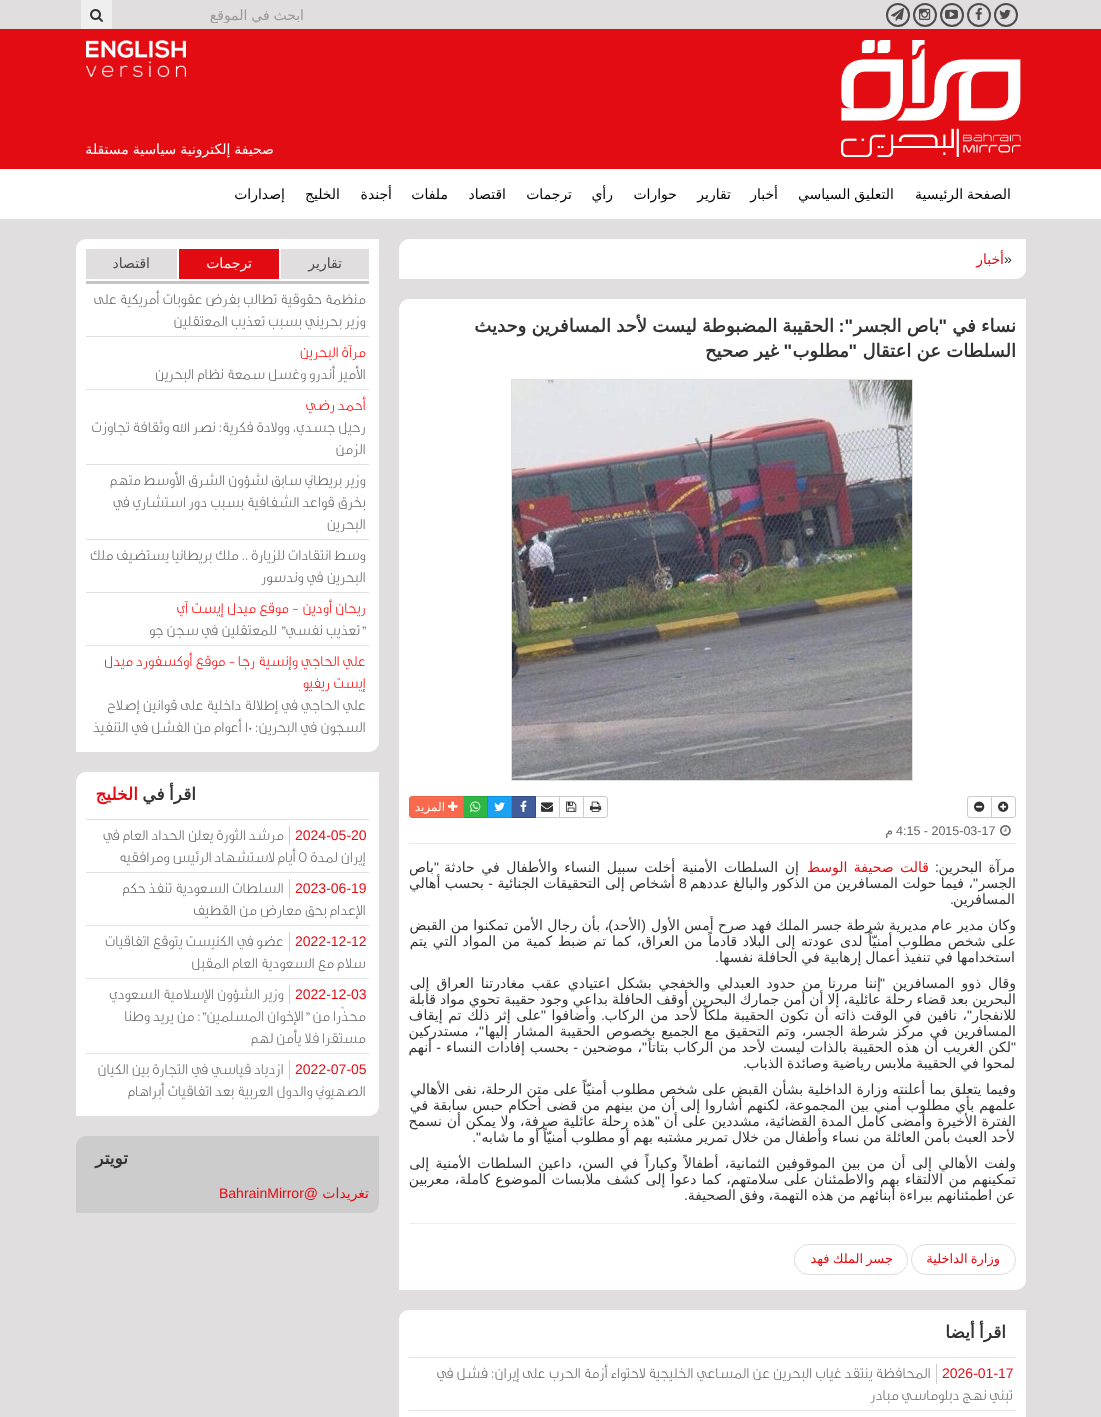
async function draw(canvas) {
  canvas.width = 1101
  canvas.height = 1417
  const ctx = canvas.getContext('2d')
  ctx.miterLimit = 4
  ctx.fontKerning = 'normal'
  async function loadImage(src) {
    const img = new Image()
    img.src = src
    await img.decode()
    return img
  }

  ctx.fillStyle = '#e0dedf'
  ctx.fillRect(0, 0, 1101, 1417)
  ctx.beginPath()
  ctx.arc(1006, 15, 11, 0, 2 * Math.PI)
  ctx.strokeStyle = '#4d4d4e'
  ctx.lineWidth = 2
  ctx.stroke()
  ctx.drawImage(await loadImage('image0.png'), 999, 9, 12, 10)
  ctx.beginPath()
  ctx.arc(979, 15, 11, 0, 2 * Math.PI)
  ctx.stroke()
  ctx.drawImage(await loadImage('image1.png'), 975, 7, 7, 13)
  ctx.beginPath()
  ctx.arc(952, 15, 11, 0, 2 * Math.PI)
  ctx.stroke()
  ctx.drawImage(await loadImage('image2.png'), 945, 9, 13, 10)
  ctx.beginPath()
  ctx.arc(925, 15, 11, 0, 2 * Math.PI)
  ctx.stroke()
  ctx.drawImage(await loadImage('image3.png'), 919, 8, 12, 12)
  ctx.beginPath()
  ctx.arc(898, 15, 11, 0, 2 * Math.PI)
  ctx.stroke()
  ctx.drawImage(await loadImage('image4.png'), 891, 7, 13, 14)
  ctx.save()
  ctx.beginPath()
  ctx.rect(124, 7, 181, 16)
  ctx.clip()
  ctx.wordSpacing = '-0.6px'
  ctx.direction = 'rtl'
  ctx.font = '14px DejaVu Sans'
  ctx.fillStyle = '#999'
  ctx.fillText('ابحث في الموقع', 304, 20)
  ctx.restore()
  ctx.fillStyle = '#efefef'
  ctx.fillRect(81, 0, 31, 29)
  ctx.drawImage(await loadImage('image5.png'), 90, 9, 13, 13)
  ctx.fillStyle = '#e30c13'
  ctx.fillRect(0, 29, 1101, 140)
  ctx.drawImage(await loadImage('image6.png'), 841, 40, 180, 117)
  ctx.drawImage(await loadImage('image7.png'), 86, 40, 100, 37)
  ctx.wordSpacing = '-0.6px'
  ctx.direction = 'rtl'
  ctx.font = '14px DejaVu Sans'
  ctx.fillStyle = '#fff'
  ctx.fillText('صحيفة إلكترونية سياسية مستقلة', 274, 154)
  ctx.fillRect(0, 169, 1101, 50)
  ctx.fillStyle = '#000'
  ctx.fillText('الصفحة الرئيسية', 1011, 199)
  ctx.fillText('التعليق السياسي', 894, 199)
  ctx.wordSpacing = '0px'
  ctx.fillText('أخبار', 778, 199)
  ctx.fillText('تقارير', 731, 199)
  ctx.fillText('حوارات', 677, 199)
  ctx.fillText('رأي', 613, 199)
  ctx.fillText('ترجمات', 572, 199)
  ctx.fillText('اقتصاد', 506, 199)
  ctx.fillText('ملفات', 448, 199)
  ctx.fillText('أجندة', 392, 199)
  ctx.fillText('الخليج', 340, 199)
  ctx.fillText('إصدارات', 285, 199)
  ctx.fillStyle = '#fff'
  ctx.beginPath()
  ctx.roundRect(399, 239, 627, 40, [10, 0, 10, 0])
  ctx.fill()
  ctx.direction = 'ltr'
  ctx.font = '14px Liberation Sans'
  ctx.fillStyle = '#333'
  ctx.fillText('»', 1004, 264)
  ctx.direction = 'rtl'
  ctx.font = '14px DejaVu Sans'
  ctx.fillStyle = '#e30c13'
  ctx.fillText('أخبار', 1004, 264)
  ctx.fillStyle = '#fff'
  ctx.beginPath()
  ctx.roundRect(399, 299, 627, 991, [10, 0, 10, 0])
  ctx.fill()
  ctx.wordSpacing = '-0.6px'
  ctx.font = 'bold 18px DejaVu Sans'
  ctx.fillStyle = '#333'
  ctx.fillText('نساء في', 1016, 332)
  ctx.wordSpacing = '0px'
  ctx.font = 'bold 18px Liberation Sans'
  ctx.fillText('"', 947, 332)
  ctx.wordSpacing = '-0.6px'
  ctx.font = 'bold 18px DejaVu Sans'
  ctx.fillText('باص الجسر', 939, 332)
  ctx.wordSpacing = '0px'
  ctx.font = 'bold 18px Liberation Sans'
  ctx.fillText('":', 853, 332)
  ctx.wordSpacing = '-0.6px'
  ctx.font = 'bold 18px DejaVu Sans'
  ctx.fillText('الحقيبة المضبوطة ليست لأحد المسافرين وحديث', 834, 332)
  ctx.wordSpacing = '-0.4px'
  ctx.fillText('السلطات عن اعتقال', 1016, 357)
  ctx.wordSpacing = '0px'
  ctx.font = 'bold 18px Liberation Sans'
  ctx.fillText('"', 857, 357)
  ctx.font = 'bold 18px DejaVu Sans'
  ctx.fillText('مطلوب', 849, 357)
  ctx.font = 'bold 18px Liberation Sans'
  ctx.fillText('"', 792, 357)
  ctx.wordSpacing = '-0.4px'
  ctx.font = 'bold 18px DejaVu Sans'
  ctx.fillText('غير صحيح', 779, 357)
  ctx.strokeStyle = '#dfdfdf'
  ctx.lineWidth = 1
  ctx.strokeRect(511.5, 379.5, 401, 401)
  ctx.drawImage(await loadImage('image8.png'), 512, 380, 400, 400)
  ctx.beginPath()
  ctx.roundRect(991.5, 796.5, 24, 21, [0, 2.5, 2.5, 0])
  ctx.strokeStyle = '#ccc'
  ctx.stroke()
  ctx.drawImage(await loadImage('image9.png'), 998, 801, 11, 11)
  ctx.fillStyle = '#fff'
  ctx.beginPath()
  ctx.roundRect(967.5, 796.5, 24, 21, [2.5, 0, 0, 2.5])
  ctx.fill()
  ctx.stroke()
  ctx.drawImage(await loadImage('image10.png'), 974, 801, 11, 11)
  ctx.beginPath()
  ctx.roundRect(583.5, 796.5, 24, 21, [0, 2.5, 2.5, 0])
  ctx.stroke()
  ctx.drawImage(await loadImage('image11.png'), 590, 801, 12, 11)
  ctx.strokeRect(559.5, 796.5, 24, 21)
  ctx.drawImage(await loadImage('image12.png'), 566, 801, 11, 11)
  ctx.strokeRect(535.5, 796.5, 24, 21)
  ctx.drawImage(await loadImage('image13.png'), 541, 802, 12, 10)
  ctx.fillStyle = '#405c9a'
  ctx.beginPath()
  ctx.rect(511.5, 796.5, 24, 21)
  ctx.fill()
  ctx.strokeStyle = '#334c83'
  ctx.stroke()
  ctx.drawImage(await loadImage('image14.png'), 520, 800, 7, 12)
  ctx.fillStyle = '#1da1f2'
  ctx.beginPath()
  ctx.rect(487.5, 796.5, 24, 21)
  ctx.fill()
  ctx.strokeStyle = '#0c95e8'
  ctx.stroke()
  ctx.drawImage(await loadImage('image15.png'), 494, 802, 11, 9)
  ctx.fillStyle = '#2eb743'
  ctx.beginPath()
  ctx.rect(463.5, 796.5, 24, 21)
  ctx.fill()
  ctx.strokeStyle = '#26a038'
  ctx.stroke()
  ctx.drawImage(await loadImage('image16.png'), 470, 801, 11, 11)
  ctx.fillStyle = '#f8694d'
  ctx.beginPath()
  ctx.roundRect(409.5, 796.5, 54, 21, [2.5, 0, 0, 2.5])
  ctx.fill()
  ctx.strokeStyle = '#ea6349'
  ctx.stroke()
  ctx.drawImage(await loadImage('image17.png'), 448, 801, 10, 10)
  ctx.wordSpacing = '0px'
  ctx.font = '12px DejaVu Sans'
  ctx.fillStyle = '#fff'
  ctx.fillText('المزيد', 445, 811)
  ctx.fillStyle = '#eaeaea'
  ctx.fillRect(409, 843, 607, 1)
  ctx.drawImage(await loadImage('image18.png'), 1000, 825, 11, 11)
  ctx.direction = 'ltr'
  ctx.font = '12.5px Liberation Sans'
  ctx.fillStyle = '#636363'
  ctx.fillText('4:15 - 2015-03-17', 896, 835)
  ctx.direction = 'rtl'
  ctx.font = '12.5px DejaVu Sans'
  ctx.fillText('م', 893, 835)
  ctx.wordSpacing = '2px'
  ctx.font = '14px DejaVu Sans'
  ctx.fillStyle = '#333'
  ctx.fillText('مرآة البحرين', 1015, 872)
  ctx.wordSpacing = '0px'
  ctx.font = '14px Liberation Sans'
  ctx.fillText(':', 939, 872)
  ctx.wordSpacing = '2px'
  ctx.font = '14px DejaVu Sans'
  ctx.fillStyle = '#e30c13'
  ctx.fillText('قالت صحيفة الوسط', 929, 872)
  ctx.wordSpacing = '2.25px'
  ctx.fillStyle = '#333'
  ctx.fillText('إن السلطات الأمنية أخلت سبيل النساء والأطفال في حادثة', 799, 872)
  ctx.wordSpacing = '0px'
  ctx.font = '14px Liberation Sans'
  ctx.fillText('"', 439, 872)
  ctx.font = '14px DejaVu Sans'
  ctx.fillText('باص', 434, 872)
  ctx.font = '14px Liberation Sans'
  ctx.fillText('"', 978, 888)
  ctx.font = '14px DejaVu Sans'
  ctx.fillText('الجسر', 1016, 888)
  ctx.fillText('، فيما حولت المسافرين من الذكور والبالغ عددهم', 973, 888)
  ctx.direction = 'ltr'
  ctx.font = '14px Liberation Sans'
  ctx.fillText('8', 679, 888)
  ctx.direction = 'rtl'
  ctx.font = '14px DejaVu Sans'
  ctx.fillText('أشخاص إلى التحقيقات الجنائية', 675, 888)
  ctx.fillText('بحسب أهالي', 484, 888)
  ctx.font = '14px Liberation Sans'
  ctx.fillText('-', 493, 888)
  ctx.font = '14px DejaVu Sans'
  ctx.fillText('المسافرين', 1015, 904)
  ctx.font = '14px Liberation Sans'
  ctx.fillText('.', 954, 904)
  ctx.font = '14px DejaVu Sans'
  ctx.fillText('وكان مدير عام مديرية شرطة جسر الملك فهد صرح أمس الأول', 1016, 930)
  ctx.font = '14px Liberation Sans'
  ctx.fillText('(', 646, 930)
  ctx.font = '14px DejaVu Sans'
  ctx.fillText('الأحد', 641, 930)
  ctx.font = '14px Liberation Sans'
  ctx.fillText(')', 613, 930)
  ctx.font = '14px DejaVu Sans'
  ctx.fillText('، بأن رجال الأمن تمكنوا من القبض', 609, 930)
  ctx.wordSpacing = '1.25px'
  ctx.fillText('على شخص مطلوب أمنيّاً لدى عودته إلى البلاد قادماً من العراق، كما تم ضبط كمية من المواد التي يتم', 1016, 946)
  ctx.wordSpacing = '-0.6px'
  ctx.fillText('استخدامها في تنفيذ أعمال إرهابية في الحافلة نفسها', 1015, 962)
  ctx.wordSpacing = '0px'
  ctx.font = '14px Liberation Sans'
  ctx.fillText('.', 719, 962)
  ctx.wordSpacing = '2.5px'
  ctx.font = '14px DejaVu Sans'
  ctx.fillText('وقال ذوو المسافرين', 1016, 988)
  ctx.wordSpacing = '0px'
  ctx.font = '14px Liberation Sans'
  ctx.fillText('"', 885, 988)
  ctx.wordSpacing = '2.5px'
  ctx.font = '14px DejaVu Sans'
  ctx.fillText('إننا مررنا من حدود العبدلي والخفجي بشكل اعتيادي عقب مغادرتنا العراق إلى', 881, 988)
  ctx.wordSpacing = '-0.4px'
  ctx.fillText('البحرين بعد قضاء رحلة عائلية، إلا أن أمن جمارك البحرين أوقف الحافلة بداعي وجود حقيبة تحوي مواد قابلة', 1016, 1004)
  ctx.wordSpacing = '0px'
  ctx.font = '14px Liberation Sans'
  ctx.fillText('"', 972, 1020)
  ctx.font = '14px DejaVu Sans'
  ctx.fillText('للانفجار', 1016, 1020)
  ctx.wordSpacing = '1.25px'
  ctx.fillText('، نافين في الوقت ذاته أن تكون الحقيبة ملكاً لأحد من الركاب', 967, 1020)
  ctx.wordSpacing = '0px'
  ctx.fillText('وأضافوا', 596, 1020)
  ctx.font = '14px Liberation Sans'
  ctx.fillText('"', 546, 1020)
  ctx.wordSpacing = '1.25px'
  ctx.font = '14px DejaVu Sans'
  ctx.fillText('على إثر ذلك تم إيقاف', 541, 1020)
  ctx.wordSpacing = '0px'
  ctx.font = '14px Liberation Sans'
  ctx.fillText('.', 605, 1020)
  ctx.wordSpacing = '1.6px'
  ctx.font = '14px DejaVu Sans'
  ctx.fillText('المسافرين في مركز شرطة الجسر، وتم التحقيق مع الجميع بخصوص الحقيبة المشار إليها', 1016, 1036)
  ctx.wordSpacing = '0px'
  ctx.font = '14px Liberation Sans'
  ctx.fillText('"', 484, 1036)
  ctx.wordSpacing = '1.6px'
  ctx.font = '14px DejaVu Sans'
  ctx.fillText('، مستدركين', 479, 1036)
  ctx.wordSpacing = '0px'
  ctx.font = '14px Liberation Sans'
  ctx.fillText('"', 1016, 1052)
  ctx.wordSpacing = '0.5px'
  ctx.font = '14px DejaVu Sans'
  ctx.fillText('لكن الغريب أن هذه الحقيبة بالذات ليست لأحد من الركاب بتاتاً', 1011, 1052)
  ctx.wordSpacing = '0px'
  ctx.font = '14px Liberation Sans'
  ctx.fillText('"', 647, 1052)
  ctx.wordSpacing = '0.5px'
  ctx.font = '14px DejaVu Sans'
  ctx.fillText('بحسب إفادات النساء', 569, 1052)
  ctx.wordSpacing = '0px'
  ctx.fillText('أنهم', 432, 1052)
  ctx.wordSpacing = '0.5px'
  ctx.fillText('، موضحين', 642, 1052)
  ctx.wordSpacing = '0px'
  ctx.font = '14px Liberation Sans'
  ctx.fillText('-', 578, 1052)
  ctx.fillText('-', 441, 1052)
  ctx.wordSpacing = '-0.6px'
  ctx.font = '14px DejaVu Sans'
  ctx.fillText('لمحوا في الحقيبة ملابس رياضية وصائدة الذباب', 1015, 1068)
  ctx.wordSpacing = '0px'
  ctx.font = '14px Liberation Sans'
  ctx.fillText('.', 747, 1068)
  ctx.font = '14px DejaVu Sans'
  ctx.fillText('وفيما يتعلق بما أعلنته وزارة الداخلية بشأن القبض على شخص مطلوب أمنيّاً على متن الرحلة، نفى الأهالي', 1016, 1094)
  ctx.wordSpacing = '0.5px'
  ctx.fillText('علمهم بأي مطلوب أمني بين المجموعة، لكنهم أشاروا إلى أن من بينهم من قضى أحكام حبس سابقة في', 1016, 1110)
  ctx.wordSpacing = '0.25px'
  ctx.fillText('الفترة الأخيرة وأمضى كامل المدة القضائية، مشددين على أن', 1016, 1126)
  ctx.wordSpacing = '0px'
  ctx.font = '14px Liberation Sans'
  ctx.fillText('"', 660, 1126)
  ctx.wordSpacing = '0.25px'
  ctx.font = '14px DejaVu Sans'
  ctx.fillText('هذه رحلة عائلية صرفة، ولا يمكن أن نسمح', 655, 1126)
  ctx.wordSpacing = '-0.6px'
  ctx.fillText('لأحد العبث بأمن العائلة من نساء وأطفال من خلال تمرير مشتبه بهم أو مطلوب أمنيّاً أو ما شابه', 1015, 1142)
  ctx.wordSpacing = '0px'
  ctx.font = '14px Liberation Sans'
  ctx.fillText('".', 481, 1142)
  ctx.wordSpacing = '2px'
  ctx.font = '14px DejaVu Sans'
  ctx.fillText('ولفت الأهالي إلى أن من بين الموقوفين الثمانية، أطفالاً وكباراً في السن، داعين السلطات الأمنية إلى', 1016, 1168)
  ctx.wordSpacing = '0.9px'
  ctx.fillText('تمكينهم من الالتقاء بهم والاطمئنان على سلامتهم، كما دعوا إلى كشف ملابسات الموضوع كاملة، معربين', 1016, 1184)
  ctx.wordSpacing = '-0.6px'
  ctx.fillText('عن اطمئنانهم ببراءة أبنائهم من هذه التهمة، وفق الصحيفة', 1015, 1200)
  ctx.wordSpacing = '0px'
  ctx.font = '14px Liberation Sans'
  ctx.fillText('.', 688, 1200)
  ctx.fillStyle = '#eee'
  ctx.fillRect(409, 1223, 607, 1)
  ctx.beginPath()
  ctx.roundRect(911.5, 1244.5, 104, 30, 14.5)
  ctx.strokeStyle = '#ddd'
  ctx.stroke()
  ctx.wordSpacing = '-1px'
  ctx.font = '13px DejaVu Sans'
  ctx.fillStyle = '#e30c13'
  ctx.fillText('وزارة الداخلية', 1000, 1263)
  ctx.beginPath()
  ctx.roundRect(794.5, 1244.5, 113, 30, 14.5)
  ctx.stroke()
  ctx.fillText('جسر الملك فهد', 893, 1263)
  ctx.fillStyle = '#fff'
  ctx.beginPath()
  ctx.moveTo(409, 1310)
  ctx.lineTo(1026, 1310)
  ctx.lineTo(1026, 1417)
  ctx.bezierCurveTo(1026, 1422.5, 1021.5, 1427, 1016, 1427)
  ctx.lineTo(399, 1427)
  ctx.lineTo(399, 1320)
  ctx.bezierCurveTo(399, 1314.5, 403.5, 1310, 409, 1310)
  ctx.closePath()
  ctx.fill()
  ctx.font = 'bold 17px DejaVu Sans'
  ctx.fillStyle = '#333'
  ctx.fillText('اقرأ أيضا', 1006, 1338)
  ctx.fillStyle = '#e2e1e1'
  ctx.fillRect(409, 1357, 607, 1)
  ctx.fillStyle = '#cdcdcd'
  ctx.fillRect(936, 1364, 1, 20)
  ctx.wordSpacing = '0px'
  ctx.direction = 'ltr'
  ctx.font = '14px Liberation Sans'
  ctx.fillStyle = '#e30c13'
  ctx.fillText('2026-01-17', 942, 1378)
  ctx.direction = 'rtl'
  ctx.font = '15.4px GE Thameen'
  ctx.fillStyle = '#636363'
  ctx.fillText('المحافظة ينتقد غياب البحرين عن المساعي الخليجية لاحتواء أزمة الحرب على إيران: فشل في', 931, 1378)
  ctx.fillText('تبني نهج دبلوماسي مبادر', 1013, 1400)
  ctx.fillStyle = '#e2e1e1'
  ctx.fillRect(409, 1410, 607, 1)
  ctx.fillStyle = '#fff'
  ctx.beginPath()
  ctx.roundRect(76, 239, 303, 513, [10, 0, 10, 0])
  ctx.fill()
  ctx.fillStyle = '#c4c4c4'
  ctx.fillRect(86, 281, 283, 3)
  ctx.fillStyle = '#e0dede'
  ctx.fillRect(281, 249, 88, 30)
  ctx.font = '14px DejaVu Sans'
  ctx.fillStyle = '#4b4b4e'
  ctx.fillText('تقارير', 342, 268)
  ctx.fillStyle = '#e30b12'
  ctx.fillRect(179, 249, 100, 30)
  ctx.fillStyle = '#fff'
  ctx.fillText('ترجمات', 252, 268)
  ctx.fillStyle = '#e0dede'
  ctx.fillRect(86, 249, 91, 30)
  ctx.fillStyle = '#4b4b4e'
  ctx.fillText('اقتصاد', 150, 268)
  ctx.font = '15.4px GE Thameen'
  ctx.fillStyle = '#636363'
  ctx.fillText('منظمة حقوقية تطالب بفرض عقوبات أمريكية على', 366, 304)
  ctx.fillText('وزير بحريني بسبب تعذيب المعتقلين', 366, 326)
  ctx.fillStyle = '#e2e1e1'
  ctx.fillRect(86, 336, 283, 1)
  ctx.fillStyle = '#f00'
  ctx.fillText('مرآة البحرين', 366, 357)
  ctx.fillStyle = '#636363'
  ctx.fillText('الأمير أندرو وغسل سمعة نظام البحرين', 366, 379)
  ctx.fillStyle = '#e2e1e1'
  ctx.fillRect(86, 389, 283, 1)
  ctx.fillStyle = '#f00'
  ctx.fillText('أحمد رضي', 366, 410)
  ctx.fillStyle = '#636363'
  ctx.fillText('رحيل جسدي، وولادة فكرية: نصر الله وثقافة تجاوزت', 366, 432)
  ctx.fillText('الزمن', 366, 454)
  ctx.fillStyle = '#e2e1e1'
  ctx.fillRect(86, 464, 283, 1)
  ctx.fillStyle = '#636363'
  ctx.fillText('وزير بريطاني سابق لشؤون الشرق الأوسط متهم', 366, 485)
  ctx.fillText('بخرق قواعد الشفافية بسبب دور استشاري في', 366, 507)
  ctx.fillText('البحرين', 366, 529)
  ctx.fillStyle = '#e2e1e1'
  ctx.fillRect(86, 539, 283, 1)
  ctx.fillStyle = '#636363'
  ctx.fillText('وسط انتقادات للزيارة .. ملك بريطانيا يستضيف ملك', 366, 560)
  ctx.fillText('البحرين في وندسور', 366, 582)
  ctx.fillStyle = '#e2e1e1'
  ctx.fillRect(86, 592, 283, 1)
  ctx.fillStyle = '#f00'
  ctx.fillText('ريحان أودين', 366, 613)
  ctx.fillText('- موقع ميدل إيست آي', 299, 613)
  ctx.fillStyle = '#636363'
  ctx.fillText('"تعذيب نفسي" للمعتقلين في سجن جو', 366, 635)
  ctx.fillStyle = '#e2e1e1'
  ctx.fillRect(86, 645, 283, 1)
  ctx.fillStyle = '#f00'
  ctx.fillText('علي الحاجي وإنسية رجا - موقع أوكسفورد ميدل', 366, 666)
  ctx.fillText('إيست ريفيو', 366, 688)
  ctx.fillStyle = '#636363'
  ctx.fillText('علي الحاجي في إطلالة داخلية على قوانين إصلاح', 366, 710)
  ctx.fillText('السجون في البحرين:', 366, 732)
  ctx.direction = 'ltr'
  ctx.fillText('10', 245, 732)
  ctx.direction = 'rtl'
  ctx.fillText('أعوام من الفشل في التنفيذ', 242, 732)
  ctx.fillStyle = '#fff'
  ctx.beginPath()
  ctx.roundRect(76, 772, 303, 344, [10, 0, 10, 0])
  ctx.fill()
  ctx.wordSpacing = '-1px'
  ctx.font = 'bold 17px DejaVu Sans'
  ctx.fillStyle = '#333'
  ctx.fillText('اقرأ في', 196, 800)
  ctx.wordSpacing = '0px'
  ctx.fillStyle = '#e30c13'
  ctx.fillText('الخليج', 138, 800)
  ctx.fillStyle = '#e2e1e1'
  ctx.fillRect(86, 819, 283, 1)
  ctx.fillStyle = '#cdcdcd'
  ctx.fillRect(289, 826, 1, 19)
  ctx.direction = 'ltr'
  ctx.font = '14px Liberation Sans'
  ctx.fillStyle = '#e30c13'
  ctx.fillText('2024-05-20', 295, 840)
  ctx.direction = 'rtl'
  ctx.font = '15.4px GE Thameen'
  ctx.fillStyle = '#636363'
  ctx.fillText('مرشد الثورة يعلن الحداد العام في', 284, 840)
  ctx.fillText('إيران لمدة', 366, 862)
  ctx.direction = 'ltr'
  ctx.fillText('5', 298, 862)
  ctx.direction = 'rtl'
  ctx.fillText('أيام لاستشهاد الرئيس ومرافقيه', 296, 862)
  ctx.fillStyle = '#e2e1e1'
  ctx.fillRect(86, 872, 283, 1)
  ctx.fillStyle = '#cdcdcd'
  ctx.fillRect(289, 879, 1, 19)
  ctx.direction = 'ltr'
  ctx.font = '14px Liberation Sans'
  ctx.fillStyle = '#e30c13'
  ctx.fillText('2023-06-19', 295, 893)
  ctx.direction = 'rtl'
  ctx.font = '15.4px GE Thameen'
  ctx.fillStyle = '#636363'
  ctx.fillText('السلطات السعودية تنفذ حكم', 284, 893)
  ctx.fillText('الإعدام بحق معارض من القطيف', 366, 915)
  ctx.fillStyle = '#e2e1e1'
  ctx.fillRect(86, 925, 283, 1)
  ctx.fillStyle = '#cdcdcd'
  ctx.fillRect(289, 932, 1, 19)
  ctx.direction = 'ltr'
  ctx.font = '14px Liberation Sans'
  ctx.fillStyle = '#e30c13'
  ctx.fillText('2022-12-12', 295, 946)
  ctx.direction = 'rtl'
  ctx.font = '15.4px GE Thameen'
  ctx.fillStyle = '#636363'
  ctx.fillText('عضو في الكنيست يتوقع اتفاقيات', 284, 946)
  ctx.fillText('سلام مع السعودية العام المقبل', 366, 968)
  ctx.fillStyle = '#e2e1e1'
  ctx.fillRect(86, 978, 283, 1)
  ctx.fillStyle = '#cdcdcd'
  ctx.fillRect(289, 985, 1, 19)
  ctx.direction = 'ltr'
  ctx.font = '14px Liberation Sans'
  ctx.fillStyle = '#e30c13'
  ctx.fillText('2022-12-03', 295, 999)
  ctx.direction = 'rtl'
  ctx.font = '15.4px GE Thameen'
  ctx.fillStyle = '#636363'
  ctx.fillText('وزير الشؤون الإسلامية السعودي', 284, 999)
  ctx.fillText('محذّرا من "الإخوان المسلمين": من يريد وطنا', 366, 1021)
  ctx.fillText('مستقرا فلا يأمن لهم', 366, 1043)
  ctx.fillStyle = '#e2e1e1'
  ctx.fillRect(86, 1053, 283, 1)
  ctx.fillStyle = '#cdcdcd'
  ctx.fillRect(289, 1060, 1, 19)
  ctx.direction = 'ltr'
  ctx.font = '14px Liberation Sans'
  ctx.fillStyle = '#e30c13'
  ctx.fillText('2022-07-05', 295, 1074)
  ctx.direction = 'rtl'
  ctx.font = '15.4px GE Thameen'
  ctx.fillStyle = '#636363'
  ctx.fillText('ازدياد قياسي في التجارة بين الكيان', 284, 1074)
  ctx.fillText('الصهيوني والدول العربية بعد اتفاقيات أبراهام', 366, 1096)
  ctx.fillStyle = '#ccc'
  ctx.beginPath()
  ctx.roundRect(76, 1136, 303, 77, [10, 0, 10, 0])
  ctx.fill()
  ctx.font = 'bold 17px DejaVu Sans'
  ctx.fillStyle = '#333'
  ctx.fillText('تويتر', 128, 1164)
  ctx.font = '14px DejaVu Sans'
  ctx.fillStyle = '#e30c13'
  ctx.fillText('تغريدات', 369, 1198)
  ctx.font = '14px Liberation Sans'
  ctx.fillText('@', 318, 1198)
  ctx.direction = 'ltr'
  ctx.fillText('BahrainMirror', 219, 1198)
}

draw(document.querySelector('canvas'))
